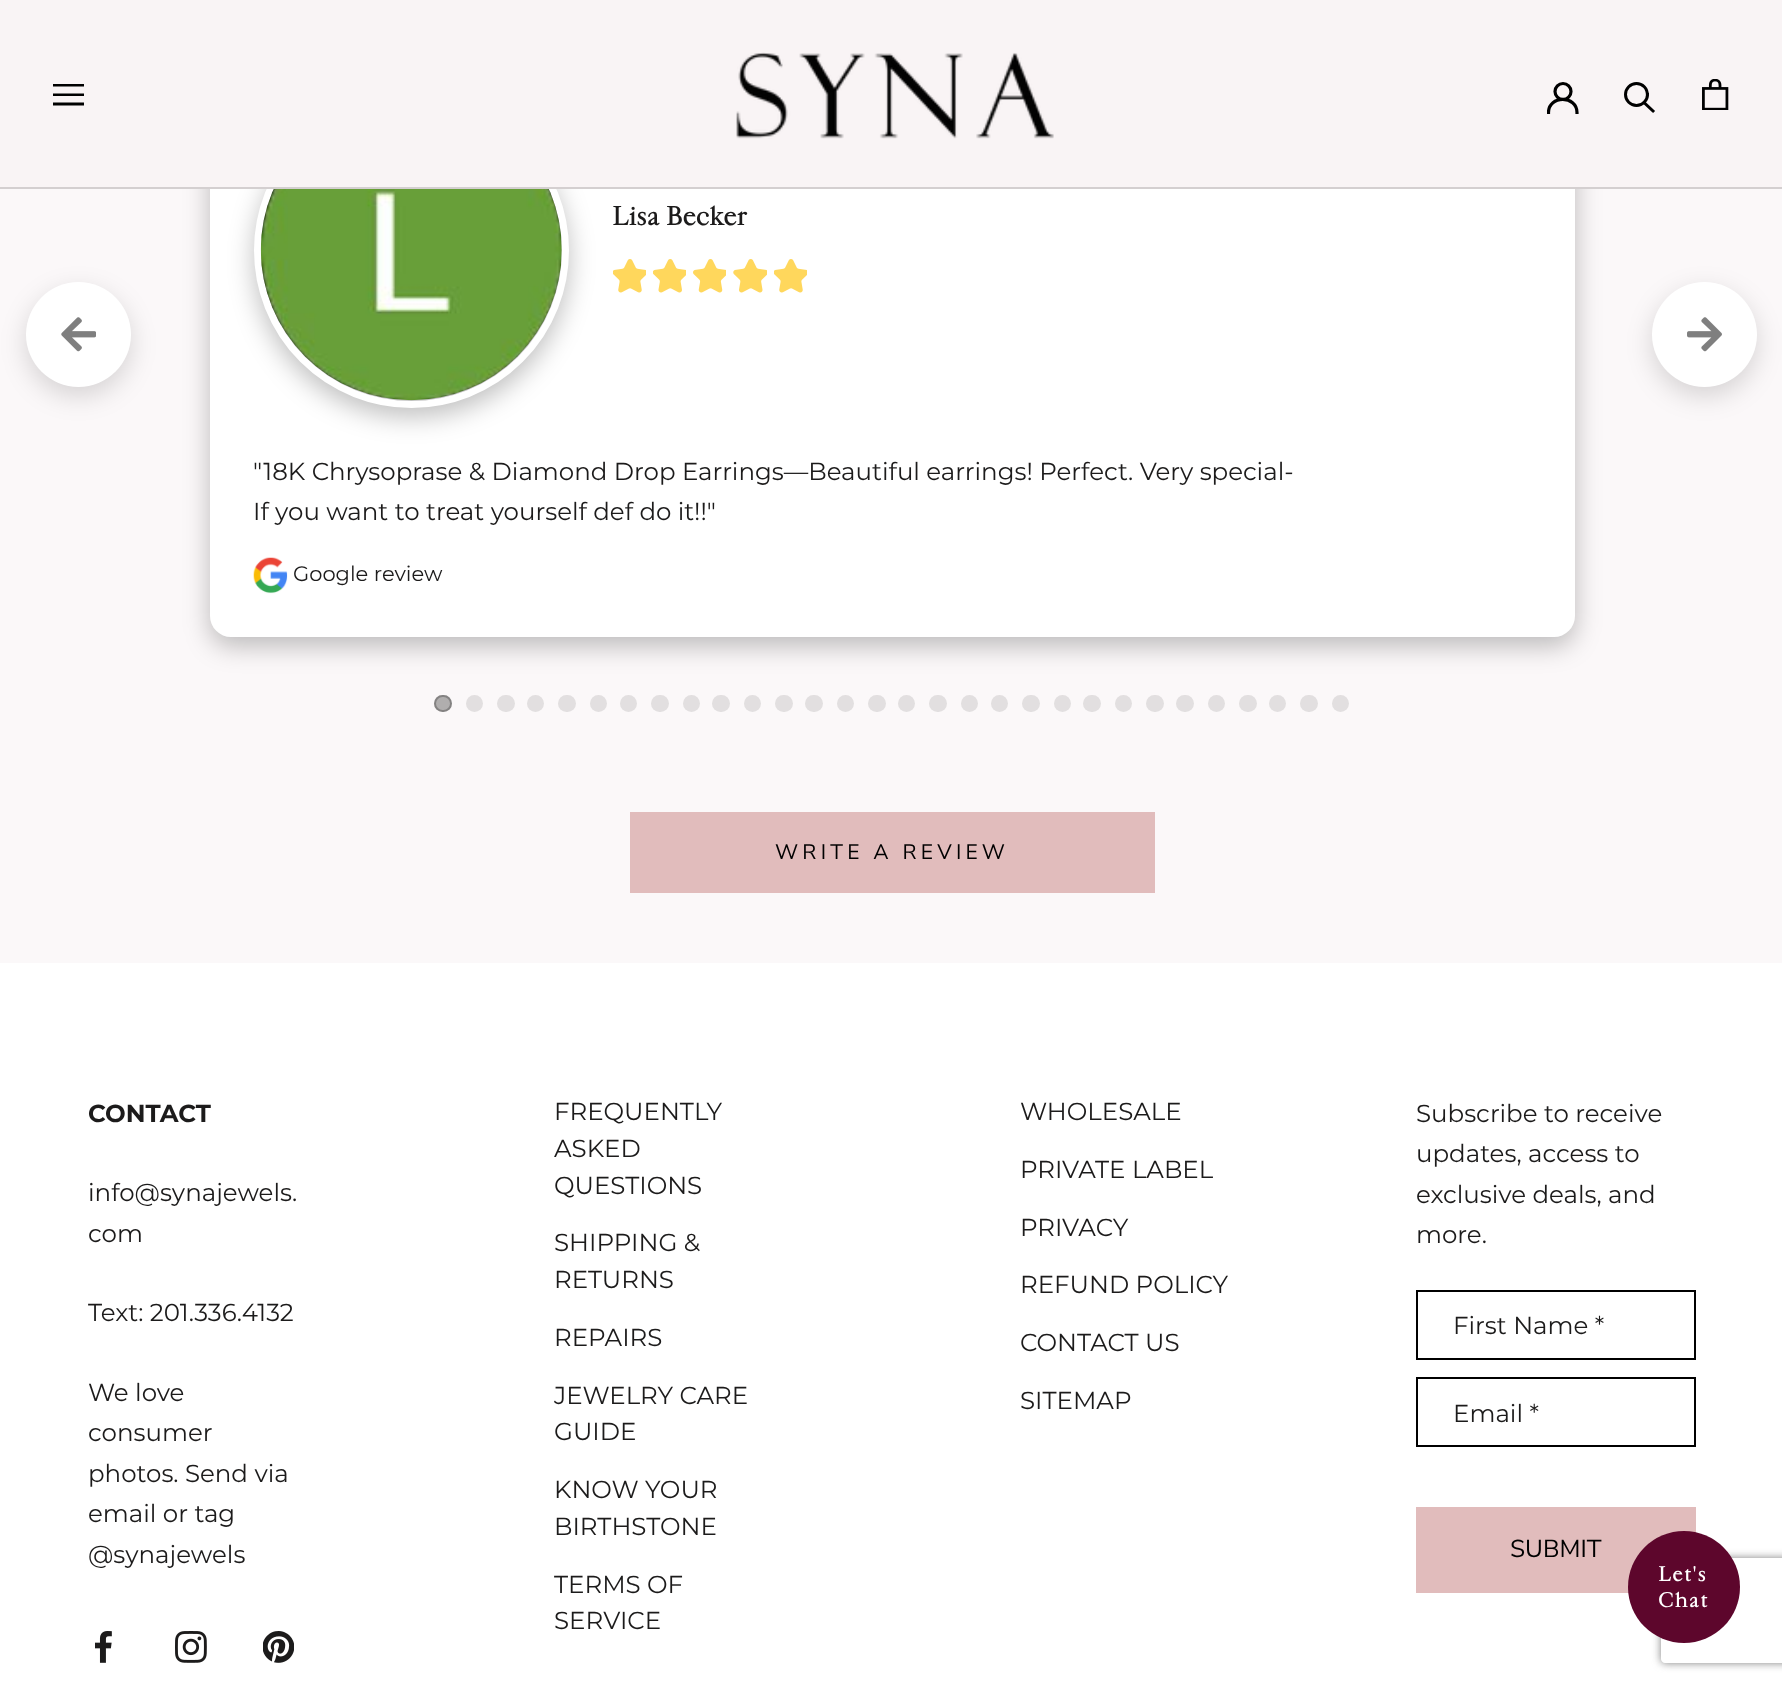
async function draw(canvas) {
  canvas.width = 1782
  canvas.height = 1687
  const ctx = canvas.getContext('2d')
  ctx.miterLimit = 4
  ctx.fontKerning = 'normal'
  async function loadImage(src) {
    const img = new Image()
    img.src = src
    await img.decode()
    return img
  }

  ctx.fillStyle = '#fbf8f9'
  ctx.fillRect(0, 0, 1782, 1687)
  ctx.fillStyle = '#00000040'
  ctx.filter = 'blur(13px)'
  ctx.beginPath()
  ctx.roundRect(210, 58, 1365, 588, 21)
  ctx.fill()
  ctx.filter = 'none'
  ctx.fillStyle = '#fff'
  ctx.beginPath()
  ctx.roundRect(210, 49, 1365, 588, 21)
  ctx.fill()
  ctx.fillStyle = '#00000040'
  ctx.filter = 'blur(13px)'
  ctx.beginPath()
  ctx.roundRect(254, 102, 315, 315, 157.5)
  ctx.fill()
  ctx.filter = 'none'
  ctx.beginPath()
  ctx.arc(411.5, 250.5, 154, 0, 2 * Math.PI)
  ctx.strokeStyle = '#fff'
  ctx.lineWidth = 7
  ctx.stroke()
  ctx.fillStyle = '#f9f4f5'
  ctx.fillRect(0, 0, 1782, 187)
  ctx.fillStyle = '#d4cfd0'
  ctx.fillRect(0, 187, 1782, 2)
  ctx.save()
  ctx.beginPath()
  ctx.rect(53, 79, 31, 31)
  ctx.clip()
  ctx.fillStyle = '#000'
  ctx.beginPath()
  ctx.moveTo(52.5, 105.5)
  ctx.lineTo(52.5, 102.5)
  ctx.lineTo(84.5, 102.5)
  ctx.lineTo(84.5, 105.5)
  ctx.closePath()
  ctx.moveTo(52.5, 93.5)
  ctx.lineTo(84.5, 93.5)
  ctx.lineTo(84.5, 96)
  ctx.lineTo(52.5, 96)
  ctx.closePath()
  ctx.moveTo(52.5, 84)
  ctx.lineTo(84.5, 84)
  ctx.lineTo(84.5, 86.5)
  ctx.lineTo(52.5, 86.5)
  ctx.closePath()
  ctx.fill()
  ctx.restore()
  ctx.drawImage(await loadImage('image0.png'), 736, 52, 318, 87)
  ctx.save()
  ctx.beginPath()
  ctx.rect(1547, 82, 33, 32)
  ctx.clip()
  ctx.beginPath()
  ctx.moveTo(1548.5, 112.5)
  ctx.bezierCurveTo(1548.5, 95, 1577, 95, 1577, 112.5)
  ctx.strokeStyle = '#000'
  ctx.lineWidth = 3.2
  ctx.lineCap = 'square'
  ctx.stroke()
  ctx.restore()
  ctx.beginPath()
  ctx.arc(1563, 91.5, 8, 0, 2 * Math.PI)
  ctx.strokeStyle = '#000'
  ctx.lineWidth = 3.2
  ctx.stroke()
  ctx.beginPath()
  ctx.moveTo(1653, 111)
  ctx.lineTo(1644, 102.5)
  ctx.lineWidth = 3
  ctx.lineCap = 'square'
  ctx.stroke()
  ctx.beginPath()
  ctx.arc(1636.5, 94.5, 11, 0, 2 * Math.PI)
  ctx.stroke()
  ctx.drawImage(await loadImage('image1.png'), 1702, 79, 27, 31)
  ctx.drawImage(await loadImage('image2.png'), 260, 189, 302, 212)
  ctx.font = 'bold 24.5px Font'
  ctx.fillStyle = '#1c1b1b'
  ctx.fillText('Lisa Becker', 612, 225)
  ctx.drawImage(await loadImage('image3.png'), 613, 259, 33, 34)
  ctx.drawImage(await loadImage('image4.png'), 653, 259, 33, 34)
  ctx.drawImage(await loadImage('image5.png'), 693, 259, 33, 34)
  ctx.drawImage(await loadImage('image6.png'), 733, 259, 34, 34)
  ctx.drawImage(await loadImage('image3.png'), 774, 259, 33, 34)
  ctx.font = '24.5px Montserrat'
  ctx.fillText('"18K Chrysoprase & Diamond Drop Earrings—Beautiful earrings! Perfect. Very special-', 253, 480)
  ctx.fillText('If you want to treat yourself def do it!!"', 253, 520)
  ctx.drawImage(await loadImage('image7.png'), 253, 557, 35, 37)
  ctx.font = '21px Montserrat'
  ctx.fillText('Google review', 293, 581)
  ctx.fillStyle = '#00000026'
  ctx.filter = 'blur(13px)'
  ctx.beginPath()
  ctx.roundRect(26, 291, 105, 105, 52.5)
  ctx.fill()
  ctx.filter = 'none'
  ctx.fillStyle = '#fff'
  ctx.beginPath()
  ctx.arc(78.5, 334.5, 52.5, 0, 2 * Math.PI)
  ctx.fill()
  ctx.drawImage(await loadImage('image8.png'), 61, 317, 35, 35)
  ctx.fillStyle = '#00000026'
  ctx.filter = 'blur(13px)'
  ctx.beginPath()
  ctx.roundRect(1652, 291, 105, 105, 52.5)
  ctx.fill()
  ctx.filter = 'none'
  ctx.fillStyle = '#fff'
  ctx.beginPath()
  ctx.arc(1704.5, 334.5, 52.5, 0, 2 * Math.PI)
  ctx.fill()
  ctx.drawImage(await loadImage('image9.png'), 1687, 317, 35, 35)
  ctx.fillStyle = '#b0aeae'
  ctx.beginPath()
  ctx.roundRect(434, 695, 18, 17, 8.5)
  ctx.fill()
  ctx.beginPath()
  ctx.roundRect(435, 696, 16, 15, 7.5)
  ctx.strokeStyle = '#00000040'
  ctx.lineWidth = 2
  ctx.stroke()
  ctx.fillStyle = '#e2dfe0'
  ctx.beginPath()
  ctx.arc(474.5, 703.5, 8.5, 0, 2 * Math.PI)
  ctx.fill()
  ctx.beginPath()
  ctx.roundRect(497, 695, 18, 17, 8.5)
  ctx.fill()
  ctx.beginPath()
  ctx.arc(535.5, 703.5, 8.5, 0, 2 * Math.PI)
  ctx.fill()
  ctx.beginPath()
  ctx.roundRect(558, 695, 18, 17, 8.5)
  ctx.fill()
  ctx.beginPath()
  ctx.arc(598.5, 703.5, 8.5, 0, 2 * Math.PI)
  ctx.fill()
  ctx.beginPath()
  ctx.arc(628.5, 703.5, 8.5, 0, 2 * Math.PI)
  ctx.fill()
  ctx.beginPath()
  ctx.roundRect(651, 695, 18, 17, 8.5)
  ctx.fill()
  ctx.beginPath()
  ctx.arc(691.5, 703.5, 8.5, 0, 2 * Math.PI)
  ctx.fill()
  ctx.beginPath()
  ctx.roundRect(712, 695, 18, 17, 8.5)
  ctx.fill()
  ctx.beginPath()
  ctx.arc(752.5, 703.5, 8.5, 0, 2 * Math.PI)
  ctx.fill()
  ctx.beginPath()
  ctx.roundRect(775, 695, 18, 17, 8.5)
  ctx.fill()
  ctx.beginPath()
  ctx.roundRect(805, 695, 18, 17, 8.5)
  ctx.fill()
  ctx.beginPath()
  ctx.arc(845.5, 703.5, 8.5, 0, 2 * Math.PI)
  ctx.fill()
  ctx.beginPath()
  ctx.roundRect(868, 695, 18, 17, 8.5)
  ctx.fill()
  ctx.beginPath()
  ctx.arc(906.5, 703.5, 8.5, 0, 2 * Math.PI)
  ctx.fill()
  ctx.beginPath()
  ctx.roundRect(929, 695, 18, 17, 8.5)
  ctx.fill()
  ctx.beginPath()
  ctx.arc(969.5, 703.5, 8.5, 0, 2 * Math.PI)
  ctx.fill()
  ctx.beginPath()
  ctx.arc(999.5, 703.5, 8.5, 0, 2 * Math.PI)
  ctx.fill()
  ctx.beginPath()
  ctx.roundRect(1022, 695, 18, 17, 8.5)
  ctx.fill()
  ctx.beginPath()
  ctx.arc(1062.5, 703.5, 8.5, 0, 2 * Math.PI)
  ctx.fill()
  ctx.beginPath()
  ctx.roundRect(1083, 695, 18, 17, 8.5)
  ctx.fill()
  ctx.beginPath()
  ctx.arc(1123.5, 703.5, 8.5, 0, 2 * Math.PI)
  ctx.fill()
  ctx.beginPath()
  ctx.roundRect(1146, 695, 18, 17, 8.5)
  ctx.fill()
  ctx.beginPath()
  ctx.roundRect(1176, 695, 18, 17, 8.5)
  ctx.fill()
  ctx.beginPath()
  ctx.arc(1216.5, 703.5, 8.5, 0, 2 * Math.PI)
  ctx.fill()
  ctx.beginPath()
  ctx.roundRect(1239, 695, 18, 17, 8.5)
  ctx.fill()
  ctx.beginPath()
  ctx.arc(1277.5, 703.5, 8.5, 0, 2 * Math.PI)
  ctx.fill()
  ctx.beginPath()
  ctx.roundRect(1300, 695, 18, 17, 8.5)
  ctx.fill()
  ctx.beginPath()
  ctx.arc(1340.5, 703.5, 8.5, 0, 2 * Math.PI)
  ctx.fill()
  ctx.strokeStyle = '#e1bcbc'
  ctx.strokeRect(631, 813, 523, 79)
  ctx.fillStyle = '#e1bcbc'
  ctx.fillRect(632, 814, 521, 77)
  ctx.letterSpacing = '4.25px'
  ctx.font = '21px Nunito Sans'
  ctx.fillStyle = '#000'
  ctx.fillText('WRITE A REVIEW', 775, 859)
  ctx.fillStyle = '#fff'
  ctx.fillRect(0, 963, 1782, 724)
  ctx.letterSpacing = '0px'
  ctx.font = 'bold 24.5px Montserrat'
  ctx.fillStyle = '#1c1b1b'
  ctx.fillText('CONTACT', 88, 1122)
  ctx.font = '24.5px Montserrat'
  ctx.fillText('info@synajewels.', 88, 1201)
  ctx.fillText('com', 88, 1242)
  ctx.fillText('Text: 201.336.4132', 88, 1321)
  ctx.fillText('We love', 88, 1401)
  ctx.fillText('consumer', 88, 1441)
  ctx.fillText('photos. Send via', 88, 1482)
  ctx.fillText('email or tag', 88, 1522)
  ctx.fillText('@synajewels', 88, 1563)
  ctx.drawImage(await loadImage('image10.png'), 95, 1631, 17, 32)
  ctx.drawImage(await loadImage('image11.png'), 175, 1631, 32, 32)
  ctx.drawImage(await loadImage('image12.png'), 263, 1631, 31, 32)
  ctx.fillText('FREQUENTLY', 554, 1120)
  ctx.fillText('ASKED', 554, 1157)
  ctx.fillText('QUESTIONS', 554, 1194)
  ctx.fillText('SHIPPING &', 554, 1251)
  ctx.fillText('RETURNS', 554, 1288)
  ctx.fillText('REPAIRS', 554, 1346)
  ctx.fillText('JEWELRY CARE', 554, 1404)
  ctx.fillText('GUIDE', 554, 1440)
  ctx.fillText('KNOW YOUR', 554, 1498)
  ctx.fillText('BIRTHSTONE', 554, 1535)
  ctx.fillText('TERMS OF', 554, 1593)
  ctx.fillText('SERVICE', 554, 1629)
  ctx.fillText('WHOLESALE', 1020, 1120)
  ctx.fillText('PRIVATE LABEL', 1020, 1178)
  ctx.fillText('PRIVACY', 1020, 1236)
  ctx.fillText('REFUND POLICY', 1020, 1293)
  ctx.fillText('CONTACT US', 1020, 1351)
  ctx.fillText('SITEMAP', 1020, 1409)
  ctx.fillText('Subscribe to receive', 1416, 1122)
  ctx.fillText('updates, access to', 1416, 1162)
  ctx.fillText('exclusive deals, and', 1416, 1203)
  ctx.fillText('more.', 1416, 1243)
  ctx.strokeStyle = '#000'
  ctx.strokeRect(1417, 1291, 278, 68)
  ctx.fillText('First Name *', 1453, 1334)
  ctx.strokeRect(1417, 1378, 278, 68)
  ctx.fillText('Email *', 1453, 1422)
  ctx.fillStyle = '#e1bcbc'
  ctx.fillRect(1416, 1507, 280, 86)
  ctx.font = '24.5px Nunito Sans'
  ctx.fillStyle = '#000'
  ctx.fillText('SUBMIT', 1510, 1557)
  ctx.save()
  ctx.beginPath()
  ctx.moveTo(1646, 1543)
  ctx.lineTo(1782, 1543)
  ctx.lineTo(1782, 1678)
  ctx.lineTo(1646, 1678)
  ctx.closePath()
  ctx.moveTo(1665, 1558)
  ctx.lineTo(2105, 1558)
  ctx.bezierCurveTo(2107, 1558, 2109, 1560, 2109, 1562)
  ctx.lineTo(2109, 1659)
  ctx.bezierCurveTo(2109, 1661, 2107, 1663, 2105, 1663)
  ctx.lineTo(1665, 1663)
  ctx.bezierCurveTo(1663, 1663, 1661, 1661, 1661, 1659)
  ctx.lineTo(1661, 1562)
  ctx.bezierCurveTo(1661, 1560, 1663, 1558, 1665, 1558)
  ctx.closePath()
  ctx.clip('evenodd')
  ctx.fillStyle = '#808080'
  ctx.filter = 'blur(4.5px)'
  ctx.beginPath()
  ctx.roundRect(1661, 1558, 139, 105, 4)
  ctx.fill()
  ctx.filter = 'none'
  ctx.restore()
  ctx.fillStyle = '#5d062c'
  ctx.beginPath()
  ctx.arc(1684, 1587, 56, 0, 2 * Math.PI)
  ctx.fill()
  ctx.letterSpacing = '1.5px'
  ctx.font = 'bold 19px Font'
  ctx.fillStyle = '#fff'
  ctx.fillText('Let\'s', 1658, 1581)
  ctx.fillText('Chat', 1658, 1607)
}

draw(document.querySelector('canvas'))
